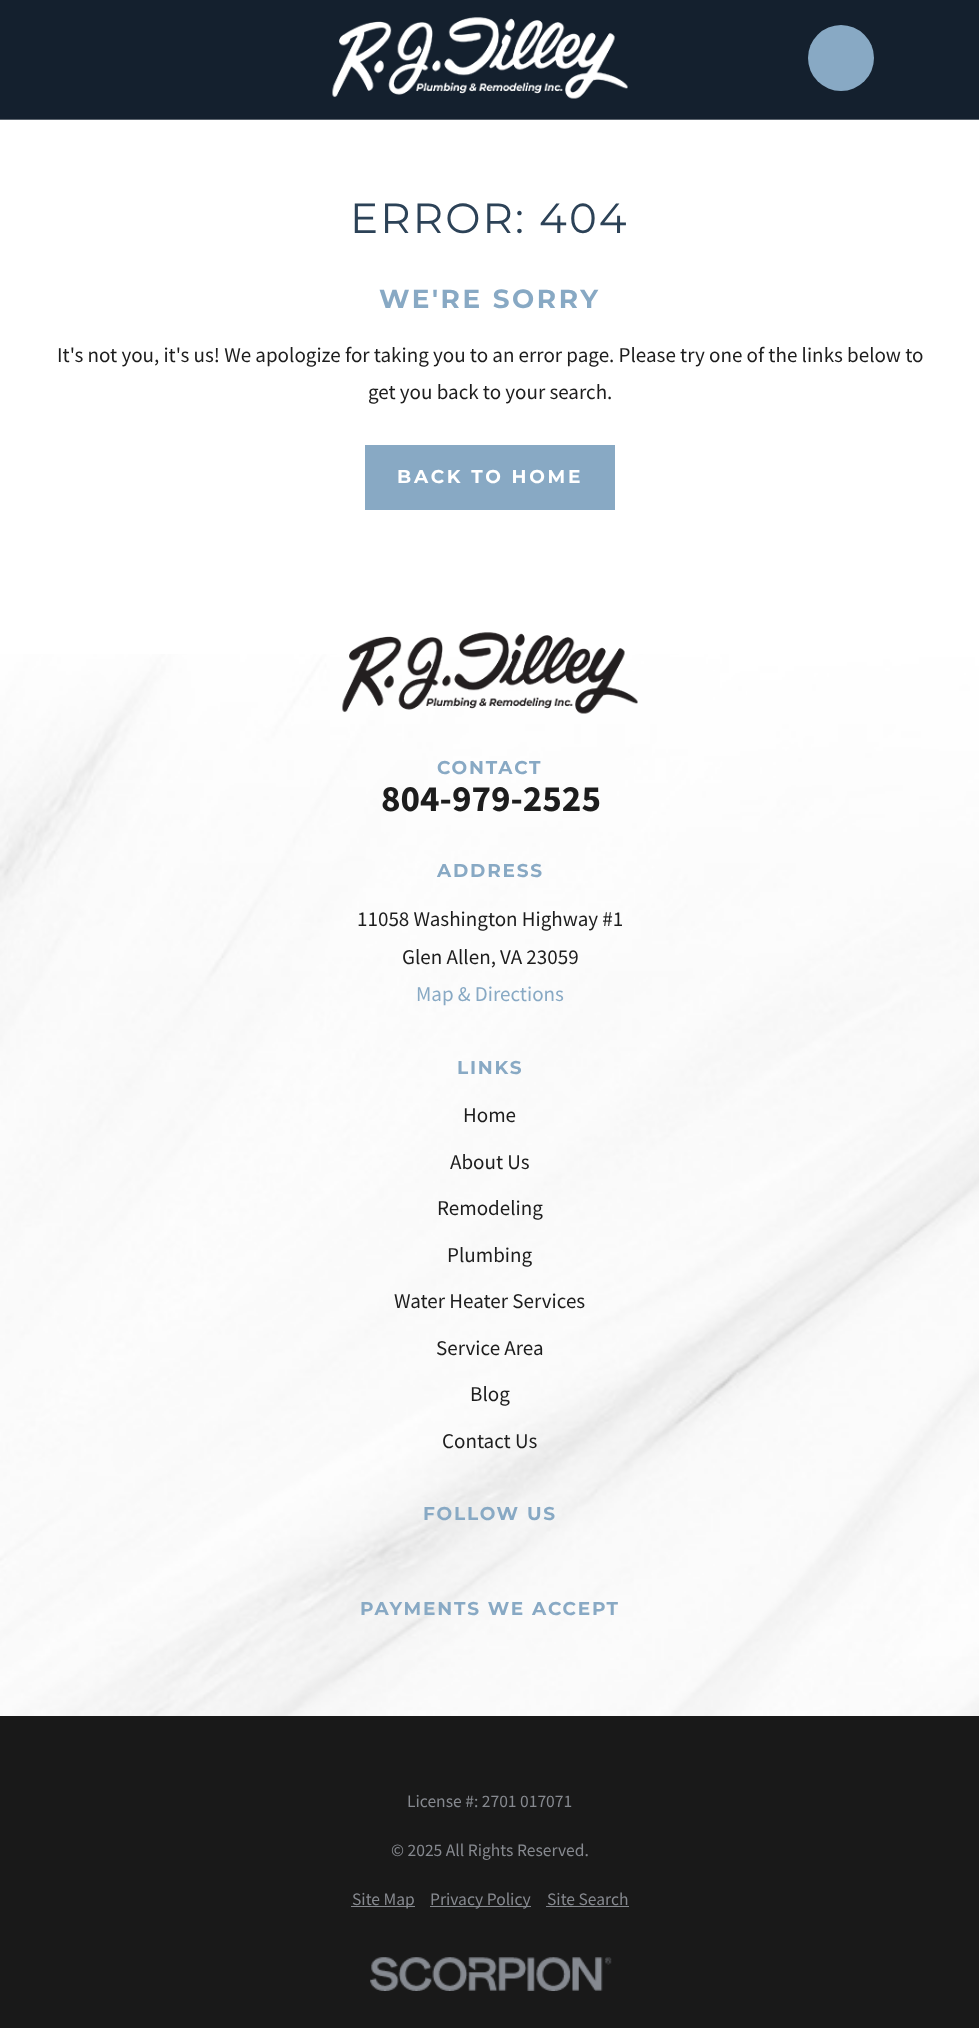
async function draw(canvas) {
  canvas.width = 979
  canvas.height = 2028
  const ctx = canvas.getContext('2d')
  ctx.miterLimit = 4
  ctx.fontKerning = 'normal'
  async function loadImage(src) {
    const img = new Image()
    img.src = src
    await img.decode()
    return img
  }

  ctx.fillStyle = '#fff'
  ctx.fillRect(0, 0, 979, 2028)
  ctx.fillStyle = '#14202e'
  ctx.fillRect(0, 0, 979, 119)
  ctx.fillStyle = '#5b636d'
  ctx.fillRect(0, 119, 979, 1)
  ctx.drawImage(await loadImage('image0.png'), 332, 17, 296, 82)
  ctx.fillStyle = '#88a9c4'
  ctx.beginPath()
  ctx.arc(841, 58, 33, 0, 2 * Math.PI)
  ctx.fill()
  ctx.letterSpacing = '2.1px'
  ctx.font = '42px Montserrat'
  ctx.fillStyle = '#2c4257'
  ctx.fillText('ERROR: 404', 350, 233)
  ctx.letterSpacing = '2.6px'
  ctx.font = 'bold 26.25px Montserrat'
  ctx.fillStyle = '#88a9c4'
  ctx.fillText('WE\'RE SORRY', 379, 308)
  ctx.letterSpacing = '0px'
  ctx.font = '21.05px Source Sans Pro'
  ctx.fillStyle = '#1d1d1d'
  ctx.fillText('It\'s not you, it\'s us! We apologize for taking you to an error page. Please try one of the links below to', 57, 362)
  ctx.fillText('get you back to your search.', 368, 399)
  ctx.fillStyle = '#88a9c4'
  ctx.fillRect(365, 445, 250, 65)
  ctx.letterSpacing = '2.75px'
  ctx.font = 'bold 18.5px Montserrat'
  ctx.fillStyle = '#fff'
  ctx.fillText('BACK TO HOME', 397, 483)
  ctx.drawImage(await loadImage('image1.png'), 0, 654, 979, 1062)
  ctx.drawImage(await loadImage('image2.png'), 342, 632, 296, 82)
  ctx.letterSpacing = '1.8px'
  ctx.fillStyle = '#88a9c4'
  ctx.fillText('CONTACT', 437, 774)
  ctx.letterSpacing = '0px'
  ctx.font = 'bold 37px Source Sans Pro'
  ctx.fillStyle = '#1d1d1d'
  ctx.fillText('804-979-2525', 381, 811)
  ctx.letterSpacing = '1.8px'
  ctx.font = 'bold 18.5px Montserrat'
  ctx.fillStyle = '#88a9c4'
  ctx.fillText('ADDRESS', 437, 877)
  ctx.letterSpacing = '0px'
  ctx.font = '21.05px Source Sans Pro'
  ctx.fillStyle = '#1d1d1d'
  ctx.fillText('11058 Washington Highway #1', 357, 926)
  ctx.fillText('Glen Allen, VA 23059', 402, 964)
  ctx.fillStyle = '#88a9c4'
  ctx.fillText('Map & Directions', 416, 1001)
  ctx.letterSpacing = '1.8px'
  ctx.font = 'bold 18.5px Montserrat'
  ctx.fillText('LINKS', 457, 1074)
  ctx.letterSpacing = '0px'
  ctx.font = '21.05px Source Sans Pro'
  ctx.fillStyle = '#1d1d1d'
  ctx.fillText('Home', 463, 1122)
  ctx.fillText('About Us', 450, 1169)
  ctx.fillText('Remodeling', 437, 1215)
  ctx.fillText('Plumbing', 447, 1262)
  ctx.fillText('Water Heater Services', 394, 1308)
  ctx.fillText('Service Area', 436, 1355)
  ctx.fillText('Blog', 470, 1401)
  ctx.fillText('Contact Us', 442, 1448)
  ctx.letterSpacing = '1.8px'
  ctx.font = 'bold 18.5px Montserrat'
  ctx.fillStyle = '#88a9c4'
  ctx.fillText('FOLLOW US', 423, 1520)
  ctx.fillText('PAYMENTS WE ACCEPT', 360, 1615)
  ctx.fillStyle = '#191919'
  ctx.fillRect(0, 1716, 979, 312)
  ctx.letterSpacing = '0px'
  ctx.font = '17.5px Source Sans Pro'
  ctx.fillStyle = '#86898f'
  ctx.fillText('License #: 2701 017071', 407, 1807)
  ctx.fillText('© 2025 All Rights Reserved.', 391, 1856)
  ctx.fillRect(351, 1906, 64, 1)
  ctx.fillText('Site Map', 352, 1905)
  ctx.fillRect(430, 1906, 101, 1)
  ctx.fillText('Privacy Policy', 430, 1905)
  ctx.fillText('Site Search', 547, 1905)
  ctx.fillRect(546, 1906, 83, 1)
  ctx.drawImage(await loadImage('image3.png'), 370, 1957, 242, 34)
}

draw(document.querySelector('canvas'))
